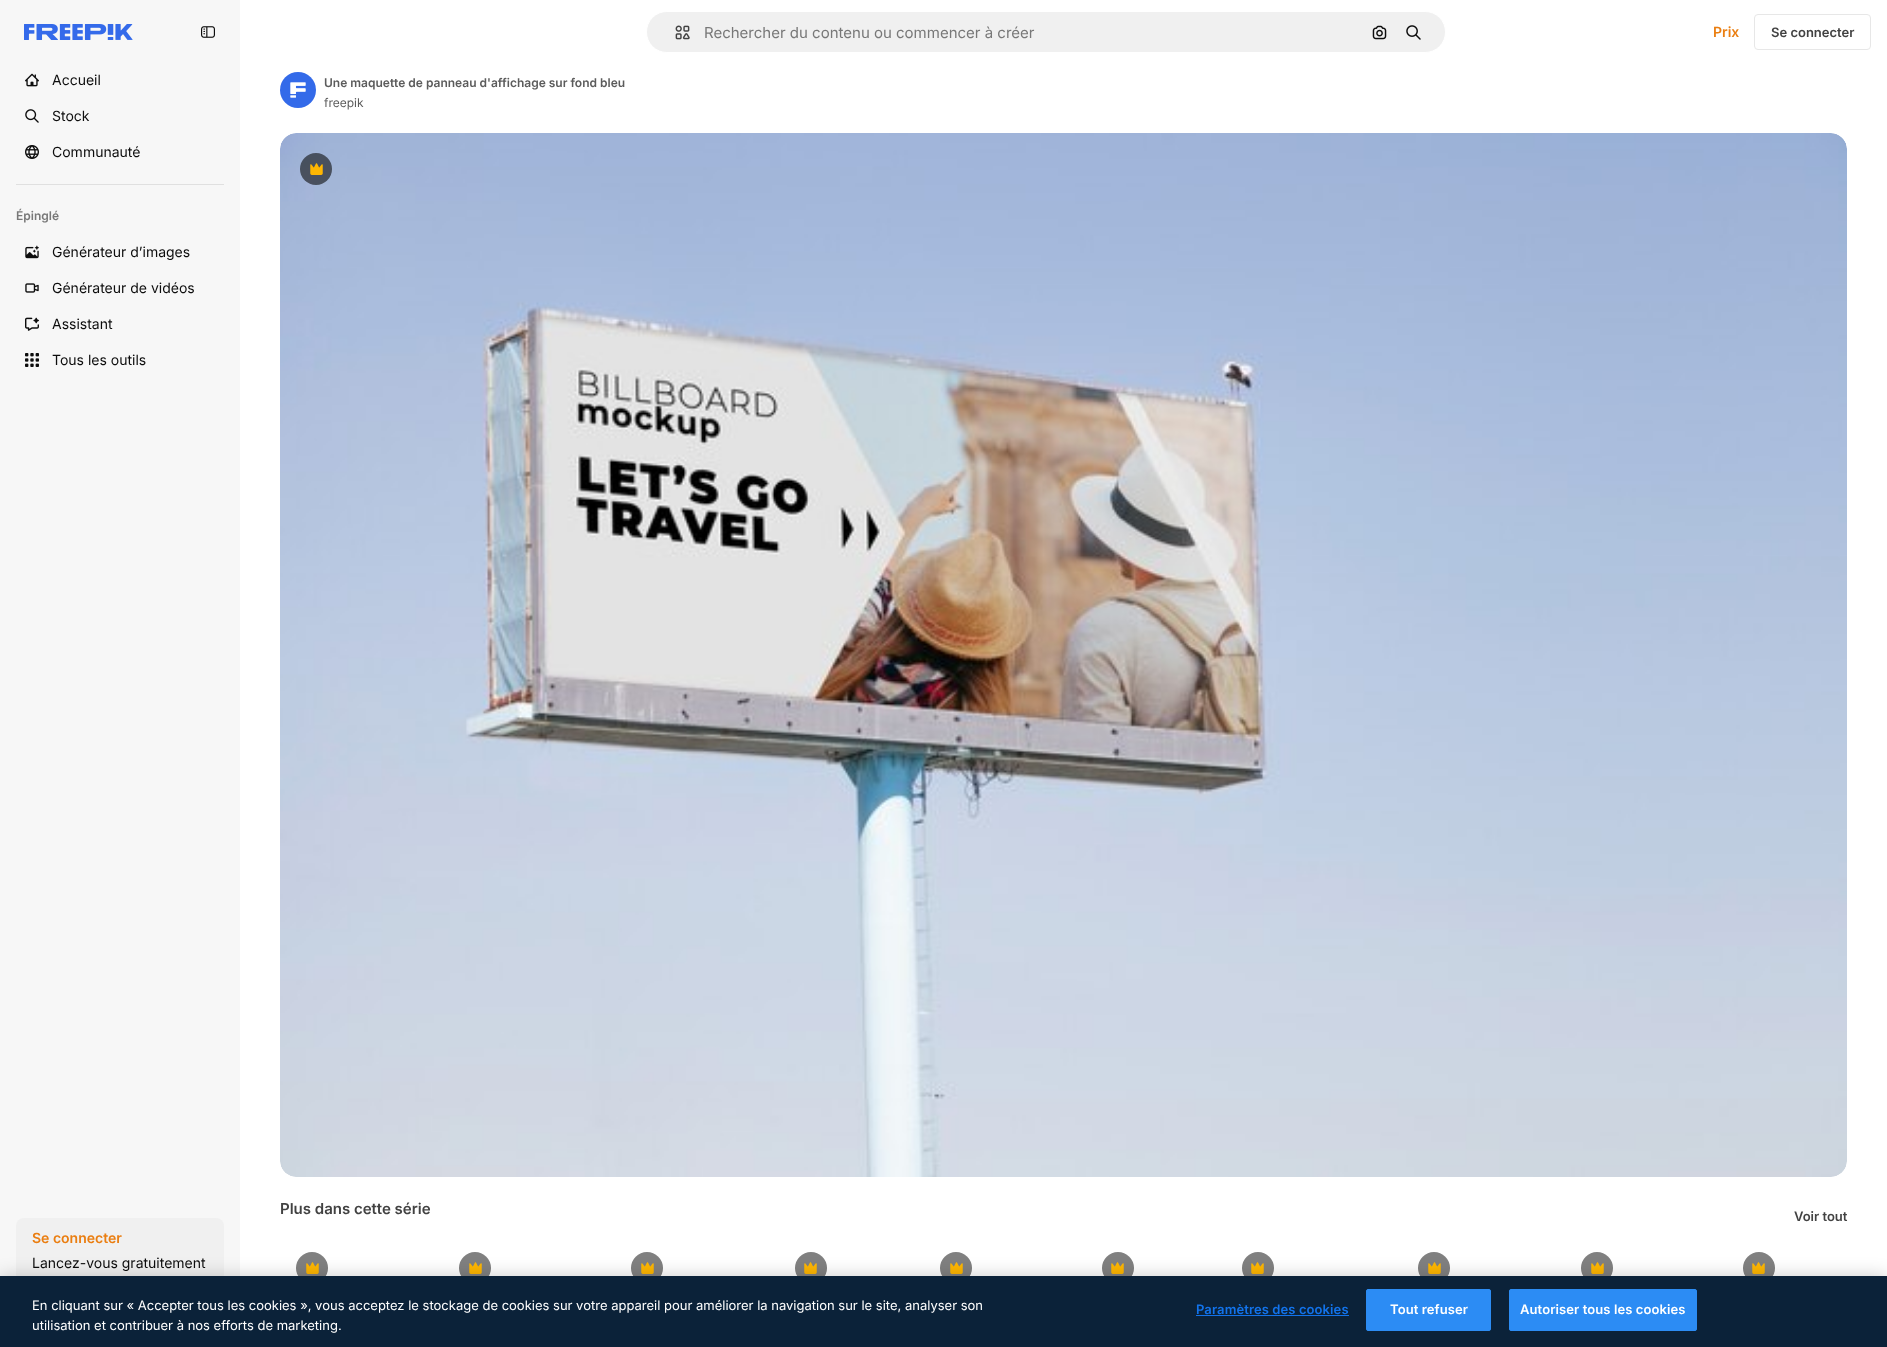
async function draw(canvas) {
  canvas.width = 1887
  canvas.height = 1347
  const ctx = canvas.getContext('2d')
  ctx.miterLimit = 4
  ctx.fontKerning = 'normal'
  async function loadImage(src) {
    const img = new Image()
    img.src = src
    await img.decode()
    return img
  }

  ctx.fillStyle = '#fff'
  ctx.fillRect(0, 0, 1887, 1347)
  ctx.fillStyle = '#f7f7f7'
  ctx.fillRect(0, 0, 240, 1276)
  ctx.drawImage(await loadImage('image0.png'), 24, 24, 109, 16)
  ctx.drawImage(await loadImage('image1.png'), 201, 26, 14, 12)
  ctx.drawImage(await loadImage('image2.png'), 25, 73, 14, 14)
  ctx.font = '14px Inter'
  ctx.fillStyle = '#0d0d0d'
  ctx.fillText('Accueil', 52, 85)
  ctx.drawImage(await loadImage('image3.png'), 25, 109, 14, 14)
  ctx.fillText('Stock', 52, 121)
  ctx.drawImage(await loadImage('image4.png'), 25, 145, 14, 14)
  ctx.fillText('Communauté', 52, 157)
  ctx.fillStyle = '#e0e0e0'
  ctx.fillRect(16, 184, 208, 1)
  ctx.font = '600 12px Inter'
  ctx.fillStyle = '#787878'
  ctx.fillText('Épinglé', 16, 220)
  ctx.drawImage(await loadImage('image5.png'), 25, 245, 14, 14)
  ctx.font = '14px Inter'
  ctx.fillStyle = '#0d0d0d'
  ctx.fillText('Générateur d’images', 52, 257)
  ctx.drawImage(await loadImage('image6.png'), 25, 283, 14, 10)
  ctx.fillText('Générateur de vidéos', 52, 293)
  ctx.drawImage(await loadImage('image7.png'), 25, 317, 14, 14)
  ctx.fillText('Assistant', 52, 329)
  ctx.drawImage(await loadImage('image8.png'), 25, 353, 14, 14)
  ctx.fillText('Tous les outils', 52, 365)
  ctx.fillStyle = '#f0f0f0'
  ctx.beginPath()
  ctx.roundRect(16, 1218, 208, 65, 8)
  ctx.fill()
  ctx.font = '600 14px Inter'
  ctx.fillStyle = '#ea7e11'
  ctx.fillText('Se connecter', 32, 1243)
  ctx.font = '14px Inter'
  ctx.fillStyle = '#0d0d0d'
  ctx.fillText('Lancez-vous gratuitement', 32, 1268)
  ctx.fillStyle = '#f0f0f0'
  ctx.beginPath()
  ctx.roundRect(646.5, 11.5, 799, 41, 20.5)
  ctx.fill()
  ctx.strokeStyle = '#fff'
  ctx.stroke()
  ctx.drawImage(await loadImage('image9.png'), 675, 25, 15, 15)
  ctx.font = '15px Inter'
  ctx.fillStyle = '#787878'
  ctx.fillText('Rechercher du contenu ou commencer à créer', 704, 38)
  ctx.drawImage(await loadImage('image10.png'), 1372, 25, 15, 15)
  ctx.drawImage(await loadImage('image11.png'), 1406, 25, 15, 15)
  ctx.font = '600 14px Inter'
  ctx.fillStyle = '#ea7e11'
  ctx.fillText('Prix', 1713, 37)
  ctx.beginPath()
  ctx.roundRect(1754.5, 14.5, 116, 35, 3.5)
  ctx.strokeStyle = '#e7e7e7'
  ctx.stroke()
  ctx.font = '600 13px Inter'
  ctx.fillStyle = '#424242'
  ctx.fillText('Se connecter', 1771, 37)
  ctx.drawImage(await loadImage('image12.png'), 280, 72, 36, 36)
  ctx.font = '600 12px Inter'
  ctx.fillStyle = '#5c5c5c'
  ctx.fillText('Une maquette de panneau d\'affichage sur fond bleu', 324, 87)
  ctx.font = '12px Inter'
  ctx.fillText('freepik', 324, 107)
  ctx.drawImage(await loadImage('image13.png'), 280, 133, 1567, 1044)
  ctx.fillStyle = '#0d0d0d99'
  ctx.beginPath()
  ctx.arc(316, 169, 16, 0, 2 * Math.PI)
  ctx.fill()
  ctx.drawImage(await loadImage('image14.png'), 310, 163, 13, 12)
  ctx.font = '600 15px Inter'
  ctx.fillStyle = '#424242'
  ctx.fillText('Plus dans cette série', 280, 1214)
  ctx.font = '600 13px Inter'
  ctx.fillText('Voir tout', 1794, 1221)
  ctx.fillStyle = '#808080'
  ctx.beginPath()
  ctx.arc(312, 1268, 16, 0, 2 * Math.PI)
  ctx.fill()
  ctx.drawImage(await loadImage('image15.png'), 306, 1262, 13, 12)
  ctx.beginPath()
  ctx.arc(475, 1268, 16, 0, 2 * Math.PI)
  ctx.fill()
  ctx.drawImage(await loadImage('image15.png'), 469, 1262, 13, 12)
  ctx.beginPath()
  ctx.arc(647, 1268, 16, 0, 2 * Math.PI)
  ctx.fill()
  ctx.drawImage(await loadImage('image15.png'), 641, 1262, 13, 12)
  ctx.beginPath()
  ctx.arc(811, 1268, 16, 0, 2 * Math.PI)
  ctx.fill()
  ctx.drawImage(await loadImage('image15.png'), 804, 1262, 13, 12)
  ctx.beginPath()
  ctx.arc(956, 1268, 16, 0, 2 * Math.PI)
  ctx.fill()
  ctx.drawImage(await loadImage('image15.png'), 950, 1262, 13, 12)
  ctx.beginPath()
  ctx.arc(1118, 1268, 16, 0, 2 * Math.PI)
  ctx.fill()
  ctx.drawImage(await loadImage('image15.png'), 1111, 1262, 13, 12)
  ctx.beginPath()
  ctx.arc(1258, 1268, 16, 0, 2 * Math.PI)
  ctx.fill()
  ctx.drawImage(await loadImage('image15.png'), 1251, 1262, 13, 12)
  ctx.beginPath()
  ctx.arc(1434, 1268, 16, 0, 2 * Math.PI)
  ctx.fill()
  ctx.drawImage(await loadImage('image15.png'), 1428, 1262, 13, 12)
  ctx.beginPath()
  ctx.arc(1597, 1268, 16, 0, 2 * Math.PI)
  ctx.fill()
  ctx.drawImage(await loadImage('image15.png'), 1591, 1262, 13, 12)
  ctx.beginPath()
  ctx.arc(1759, 1268, 16, 0, 2 * Math.PI)
  ctx.fill()
  ctx.drawImage(await loadImage('image15.png'), 1752, 1262, 13, 12)
  ctx.fillStyle = '#00000033'
  ctx.filter = 'blur(9px)'
  ctx.beginPath()
  ctx.rect(0, 1276, 1887, 71)
  ctx.fill()
  ctx.filter = 'none'
  ctx.fillStyle = '#0b2239'
  ctx.fillRect(0, 1276, 1887, 71)
  ctx.font = '13px Inter'
  ctx.fillStyle = '#fff'
  ctx.fillText('En cliquant sur « Accepter tous les cookies », vous acceptez le stockage de cookies sur votre appareil pour améliorer la navigation sur le site, analyser son', 32, 1310)
  ctx.fillText('utilisation et contribuer à nos efforts de marketing.', 32, 1330)
  ctx.letterSpacing = '0.1px'
  ctx.font = '600 13px Inter'
  ctx.fillStyle = '#1273eb'
  ctx.fillText('Paramètres des cookies', 1196, 1314)
  ctx.fillRect(1196, 1315, 153, 1)
  ctx.fillStyle = '#2c8cf4'
  ctx.beginPath()
  ctx.roundRect(1366.5, 1289.5, 124, 41, 1.5)
  ctx.fill()
  ctx.strokeStyle = '#2c8cf4'
  ctx.stroke()
  ctx.fillStyle = '#fff'
  ctx.fillText('Tout refuser', 1390, 1314)
  ctx.fillStyle = '#2c8cf4'
  ctx.beginPath()
  ctx.roundRect(1509.5, 1289.5, 187, 41, 1.5)
  ctx.fill()
  ctx.stroke()
  ctx.fillStyle = '#fff'
  ctx.fillText('Autoriser tous les cookies', 1520, 1314)
}

draw(document.querySelector('canvas'))
